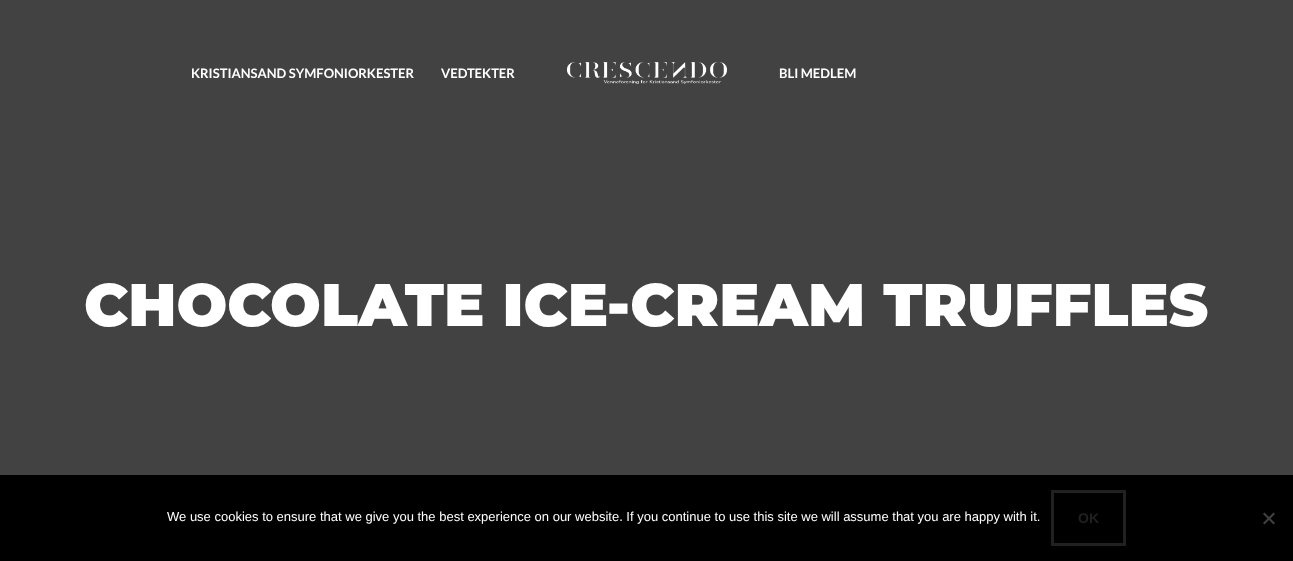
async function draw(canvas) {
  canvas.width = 1293
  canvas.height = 561
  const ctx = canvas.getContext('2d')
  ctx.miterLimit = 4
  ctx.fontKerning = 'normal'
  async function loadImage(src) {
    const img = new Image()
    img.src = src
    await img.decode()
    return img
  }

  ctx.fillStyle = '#424242'
  ctx.fillRect(0, 0, 1293, 561)
  ctx.font = 'bold 13px Lato'
  ctx.fillStyle = '#fff'
  ctx.fillText('KRISTIANSAND SYMFONIORKESTER', 191, 78)
  ctx.fillText('VEDTEKTER', 441, 78)
  ctx.drawImage(await loadImage('image0.png'), 567, 62, 160, 22)
  ctx.fillText('BLI MEDLEM', 779, 78)
  ctx.font = '900 60px Montserrat'
  ctx.fillText('CHOCOLATE ICE-CREAM TRUFFLES', 84, 326)
  ctx.fillStyle = '#000'
  ctx.fillRect(0, 475, 1293, 86)
  ctx.font = '13px Liberation Sans'
  ctx.fillStyle = '#fff'
  ctx.fillText('We use cookies to ensure that we give you the best experience on our website. If you continue to use this site we will assume that you are happy with it.', 167, 521)
  ctx.strokeStyle = '#212121'
  ctx.lineWidth = 3
  ctx.strokeRect(1052.5, 491.5, 72, 53)
  ctx.font = 'bold 14px Liberation Sans'
  ctx.fillStyle = '#212121'
  ctx.fillText('OK', 1078, 523)
  ctx.fillStyle = '#404040'
  ctx.beginPath()
  ctx.moveTo(1273.5, 512.5)
  ctx.lineTo(1275, 514)
  ctx.lineTo(1264.5, 524.5)
  ctx.lineTo(1263, 523)
  ctx.closePath()
  ctx.fill()
  ctx.beginPath()
  ctx.moveTo(1263, 514)
  ctx.lineTo(1264.5, 512.5)
  ctx.lineTo(1275, 523)
  ctx.lineTo(1273.5, 524.5)
  ctx.closePath()
  ctx.fill()
}

draw(document.querySelector('canvas'))
